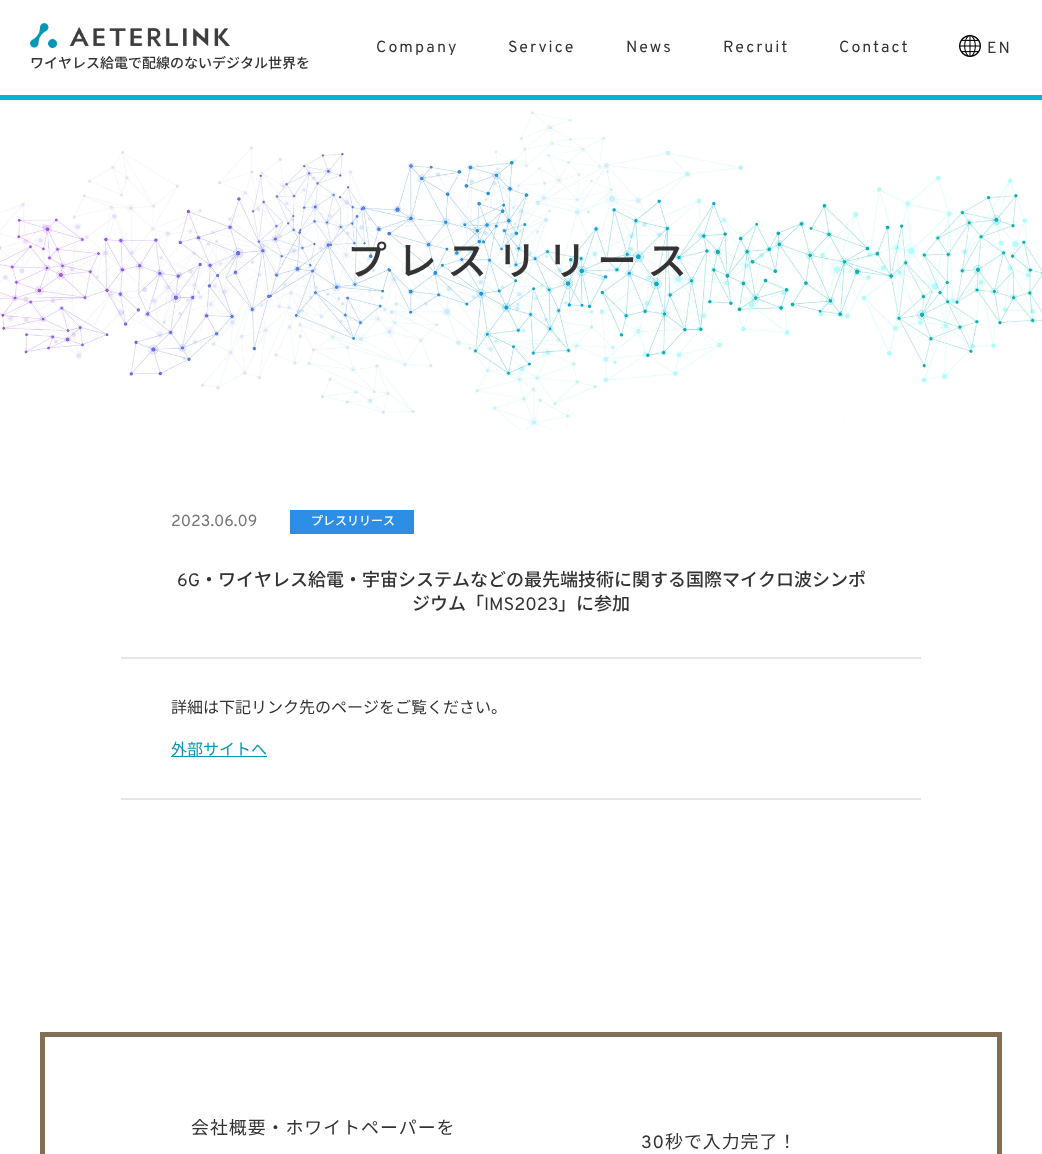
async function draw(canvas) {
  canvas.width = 1042
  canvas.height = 1154
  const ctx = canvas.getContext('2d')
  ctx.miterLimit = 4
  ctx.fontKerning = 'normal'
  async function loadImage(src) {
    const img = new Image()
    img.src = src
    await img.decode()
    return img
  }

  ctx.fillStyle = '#fff'
  ctx.fillRect(0, 0, 1042, 1154)
  ctx.fillStyle = '#09b1d8'
  ctx.fillRect(0, 95, 1042, 5)
  ctx.letterSpacing = '2px'
  ctx.font = '16px Overpass'
  ctx.fillStyle = '#333'
  ctx.fillText('Company', 376, 52)
  ctx.fillText('Service', 508, 52)
  ctx.fillText('News', 626, 52)
  ctx.fillText('Recruit', 723, 52)
  ctx.fillText('Contact', 839, 52)
  ctx.drawImage(await loadImage('image0.png'), 959, 35, 22, 22)
  ctx.fillText('EN', 987, 53)
  ctx.drawImage(await loadImage('image1.png'), 30, 23, 200, 25)
  ctx.letterSpacing = '0px'
  ctx.font = '500 14px Noto Sans JP'
  ctx.fillText('ワイヤレス給電で配線のないデジタル世界を', 30, 68)
  ctx.drawImage(await loadImage('image2.png'), 0, 111, 1042, 319)
  ctx.letterSpacing = '10px'
  ctx.font = '500 40px Noto Sans JP'
  ctx.fillText('プレスリリース', 347, 275)
  ctx.letterSpacing = '0px'
  ctx.font = '16px Overpass'
  ctx.fillStyle = '#767676'
  ctx.fillText('2023.06.09', 171, 526)
  ctx.fillStyle = '#2e8ee5'
  ctx.fillRect(290, 510, 124, 24)
  ctx.font = '500 12px Noto Sans JP'
  ctx.fillStyle = '#fff'
  ctx.fillText('プレスリリース', 311, 525)
  ctx.font = '18px Overpass'
  ctx.fillStyle = '#333'
  ctx.fillText('6G', 177, 586)
  ctx.font = '500 18px Noto Sans JP'
  ctx.fillText('・ワイヤレス給電・宇宙システムなどの最先端技術に関する国際マイクロ波シンポ', 200, 586)
  ctx.fillText('ジウム「', 412, 610)
  ctx.font = '18px Overpass'
  ctx.fillText('IMS2023', 484, 610)
  ctx.font = '500 18px Noto Sans JP'
  ctx.fillText('」に参加', 558, 610)
  ctx.fillStyle = '#e6e6e6'
  ctx.fillRect(121, 657, 800, 2)
  ctx.fillRect(121, 798, 800, 2)
  ctx.font = '16px Noto Sans JP'
  ctx.fillStyle = '#333'
  ctx.fillText('詳細は下記リンク先のページをご覧ください。', 171, 713)
  ctx.fillStyle = '#0896b7'
  ctx.fillRect(171, 756, 96, 1)
  ctx.fillText('外部サイトへ', 171, 755)
  ctx.strokeStyle = '#826e53'
  ctx.lineWidth = 5
  ctx.strokeRect(42.5, 1034.5, 957, 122)
  ctx.letterSpacing = '1px'
  ctx.font = '17.9px Noto Sans JP'
  ctx.fillStyle = '#333'
  ctx.fillText('会社概要・ホワイトペーパーを', 191, 1134)
  ctx.font = '17.9px Overpass'
  ctx.fillText('30', 641, 1148)
  ctx.font = '17.9px Noto Sans JP'
  ctx.fillText('秒で入力完了！', 665, 1148)
}

draw(document.querySelector('canvas'))
